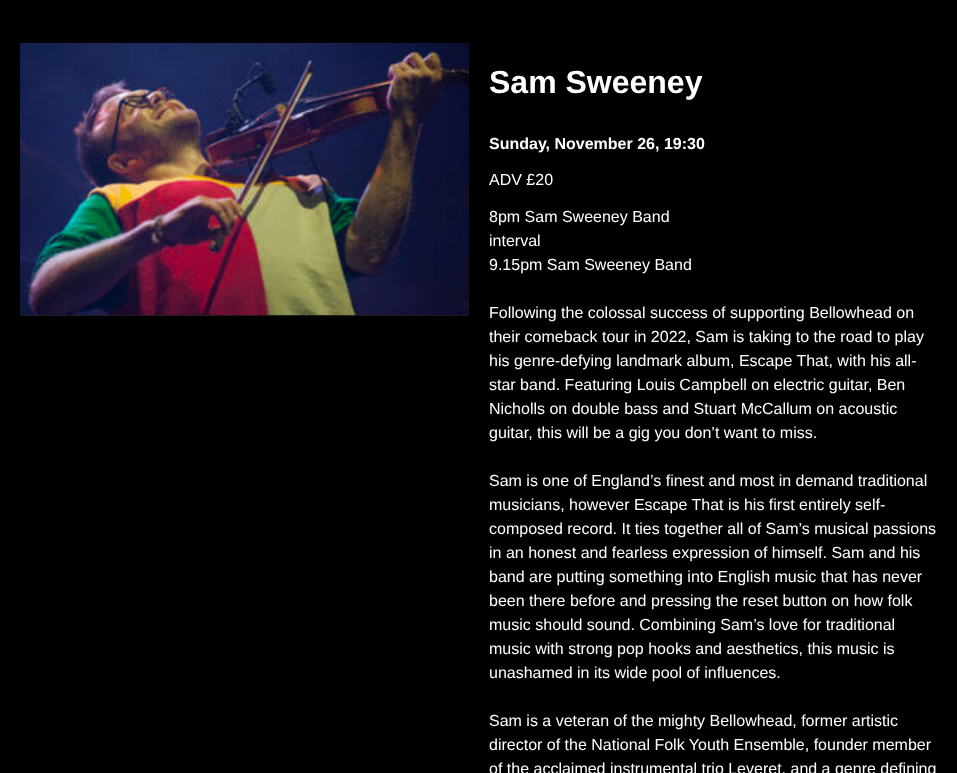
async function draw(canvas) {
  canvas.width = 957
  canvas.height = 773
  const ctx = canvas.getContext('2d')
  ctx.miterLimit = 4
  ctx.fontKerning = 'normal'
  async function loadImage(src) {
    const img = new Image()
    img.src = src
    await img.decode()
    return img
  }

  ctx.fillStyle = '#000'
  ctx.fillRect(0, 0, 957, 773)
  ctx.drawImage(await loadImage('image0.png'), 20, 43, 449, 273)
  ctx.font = 'bold 32px Liberation Sans'
  ctx.fillStyle = '#fff'
  ctx.fillText('Sam Sweeney', 489, 93)
  ctx.font = 'bold 16px Liberation Sans'
  ctx.fillText('Sunday, November 26, 19:30', 489, 149)
  ctx.font = '16px Liberation Sans'
  ctx.fillText('ADV £20', 489, 185)
  ctx.fillText('8pm Sam Sweeney Band', 489, 222)
  ctx.fillText('interval', 489, 246)
  ctx.fillText('9.15pm Sam Sweeney Band', 489, 270)
  ctx.fillText('Following the colossal success of supporting Bellowhead on', 489, 318)
  ctx.fillText('their comeback tour in 2022, Sam is taking to the road to play', 489, 342)
  ctx.fillText('his genre-defying landmark album, Escape That, with his all-', 489, 366)
  ctx.fillText('star band. Featuring Louis Campbell on electric guitar, Ben', 489, 390)
  ctx.fillText('Nicholls on double bass and Stuart McCallum on acoustic', 489, 414)
  ctx.fillText('guitar, this will be a gig you don’t want to miss.', 489, 438)
  ctx.fillText('Sam is one of England’s finest and most in demand traditional', 489, 486)
  ctx.fillText('musicians, however Escape That is his first entirely self-', 489, 510)
  ctx.fillText('composed record. It ties together all of Sam’s musical passions', 489, 534)
  ctx.fillText('in an honest and fearless expression of himself. Sam and his', 489, 558)
  ctx.fillText('band are putting something into English music that has never', 489, 582)
  ctx.fillText('been there before and pressing the reset button on how folk', 489, 606)
  ctx.fillText('music should sound. Combining Sam’s love for traditional', 489, 630)
  ctx.fillText('music with strong pop hooks and aesthetics, this music is', 489, 654)
  ctx.fillText('unashamed in its wide pool of influences.', 489, 678)
  ctx.fillText('Sam is a veteran of the mighty Bellowhead, former artistic', 489, 726)
  ctx.fillText('director of the National Folk Youth Ensemble, founder member', 489, 750)
  ctx.fillText('of the acclaimed instrumental trio Leveret, and a genre defining', 489, 774)
}

draw(document.querySelector('canvas'))
